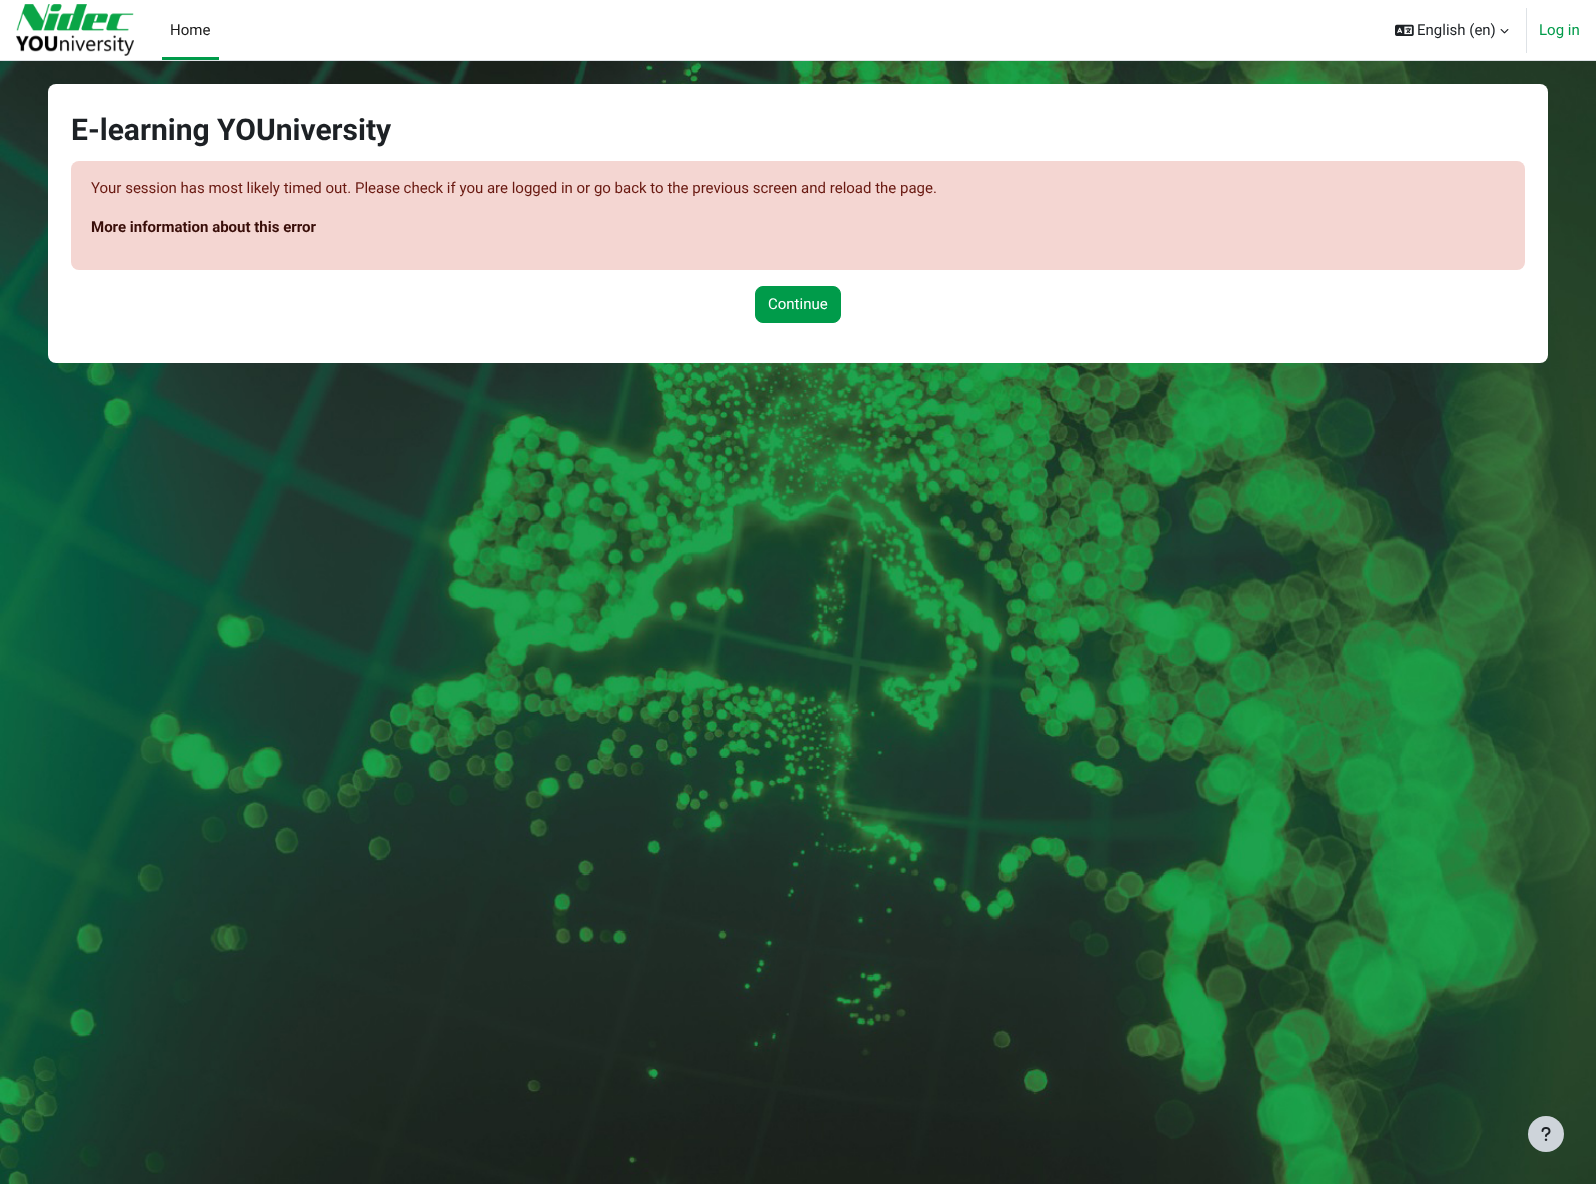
async function draw(canvas) {
  canvas.width = 1596
  canvas.height = 1184
  const ctx = canvas.getContext('2d')
  ctx.miterLimit = 4
  ctx.fontKerning = 'normal'
  async function loadImage(src) {
    const img = new Image()
    img.src = src
    await img.decode()
    return img
  }

  ctx.fillStyle = '#fff'
  ctx.fillRect(0, 0, 1596, 1184)
  ctx.drawImage(await loadImage('image0.png'), 0, 61, 1596, 1123)
  ctx.fillStyle = '#dee2e6'
  ctx.fillRect(0, 60, 1596, 1)
  ctx.drawImage(await loadImage('image1.png'), 16, 4, 118, 52)
  ctx.fillStyle = '#009b4a'
  ctx.fillRect(162, 57, 57, 3)
  ctx.font = '15px Roboto'
  ctx.fillStyle = '#1a1a1a'
  ctx.fillText('Home', 170, 35)
  ctx.drawImage(await loadImage('image2.png'), 1395, 24, 19, 12)
  ctx.fillStyle = '#1d2125'
  ctx.fillText('English (en)', 1417, 35)
  ctx.drawImage(await loadImage('image3.png'), 1500, 29, 9, 5)
  ctx.fillStyle = '#dee2e6'
  ctx.fillRect(1526, 8, 1, 45)
  ctx.fillStyle = '#009b4a'
  ctx.fillText('Log in', 1539, 35)
  ctx.fillStyle = '#fff'
  ctx.beginPath()
  ctx.roundRect(48, 84, 1500, 279, 8)
  ctx.fill()
  ctx.font = 'bold 30px Roboto'
  ctx.fillStyle = '#1d2125'
  ctx.fillText('E-learning YOUniversity', 71, 140)
  ctx.fillStyle = '#f4d6d2'
  ctx.beginPath()
  ctx.roundRect(71, 161, 1454, 109, 8)
  ctx.fill()
  ctx.font = '15px Roboto'
  ctx.fillStyle = '#691911'
  ctx.fillText('Your session has most likely timed out. Please check if you are logged in or go back to the previous screen and reload the page.', 91, 193)
  ctx.font = 'bold 15px Roboto'
  ctx.fillStyle = '#390e09'
  ctx.fillText('More information about this error', 91, 232)
  ctx.fillStyle = '#009b4a'
  ctx.beginPath()
  ctx.roundRect(755.5, 286.5, 85, 36, 7.5)
  ctx.fill()
  ctx.strokeStyle = '#009b4a'
  ctx.stroke()
  ctx.font = '15px Roboto'
  ctx.fillStyle = '#fff'
  ctx.fillText('Continue', 768, 309)
  ctx.fillStyle = '#ced4da'
  ctx.beginPath()
  ctx.arc(1546, 1134, 18, 0, 2 * Math.PI)
  ctx.fill()
  ctx.drawImage(await loadImage('image4.png'), 1541, 1127, 10, 14)
}

draw(document.querySelector('canvas'))
